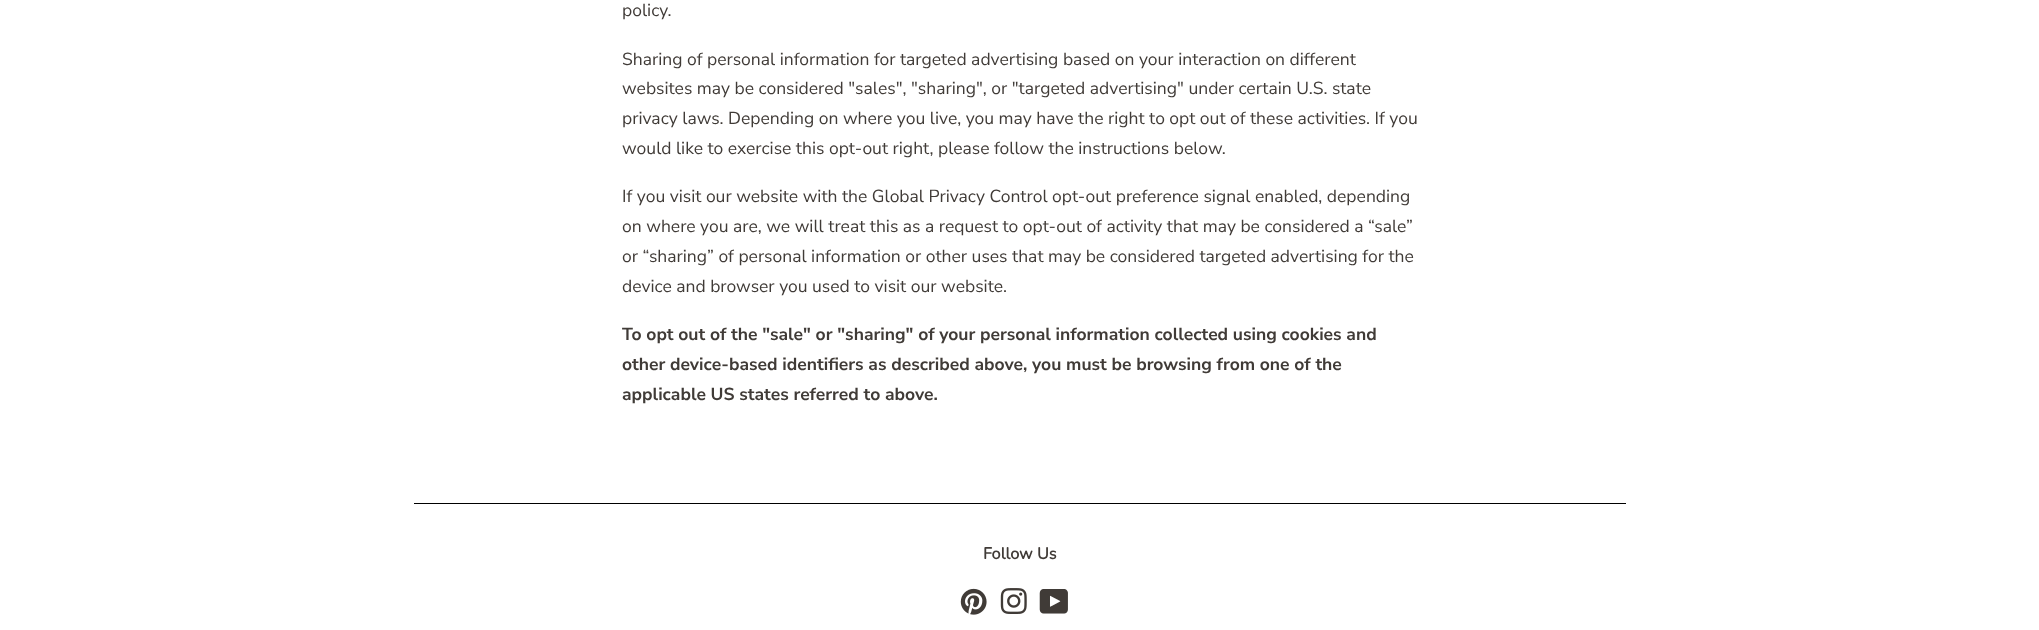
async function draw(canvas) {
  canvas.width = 2039
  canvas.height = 630
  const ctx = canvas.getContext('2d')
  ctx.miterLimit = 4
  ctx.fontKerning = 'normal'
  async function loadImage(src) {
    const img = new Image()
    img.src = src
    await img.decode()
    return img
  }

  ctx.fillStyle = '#fff'
  ctx.fillRect(0, 0, 2039, 630)
  ctx.font = '17.5px Nunito Sans'
  ctx.fillStyle = '#403b37'
  ctx.fillText('policy.', 622, 16)
  ctx.fillText('Sharing of personal information for targeted advertising based on your interaction on different', 622, 65)
  ctx.fillText('websites may be considered "sales", "sharing", or "targeted advertising" under certain U.S. state', 622, 94)
  ctx.fillText('privacy laws. Depending on where you live, you may have the right to opt out of these activities. If you', 622, 124)
  ctx.fillText('would like to exercise this opt-out right, please follow the instructions below.', 622, 154)
  ctx.fillText('If you visit our website with the Global Privacy Control opt-out preference signal enabled, depending', 622, 202)
  ctx.fillText('on where you are, we will treat this as a request to opt-out of activity that may be considered a “sale”', 622, 232)
  ctx.fillText('or “sharing” of personal information or other uses that may be considered targeted advertising for the', 622, 262)
  ctx.fillText('device and browser you used to visit our website.', 622, 292)
  ctx.font = 'bold 17.5px Nunito Sans'
  ctx.fillText('To opt out of the "sale" or "sharing" of your personal information collected using cookies and', 622, 340)
  ctx.fillText('other device-based identifiers as described above, you must be browsing from one of the', 622, 370)
  ctx.fillText('applicable US states referred to above.', 622, 400)
  ctx.fillStyle = '#000'
  ctx.fillRect(414, 503, 1212, 1)
  ctx.font = 'bold 16.25px Nunito'
  ctx.fillStyle = '#403b37'
  ctx.fillText('Follow Us', 983, 559)
  ctx.drawImage(await loadImage('image0.png'), 960, 588, 27, 27)
  ctx.drawImage(await loadImage('image1.png'), 1000, 588, 27, 26)
  ctx.drawImage(await loadImage('image2.png'), 1039, 589, 29, 25)
}

draw(document.querySelector('canvas'))
